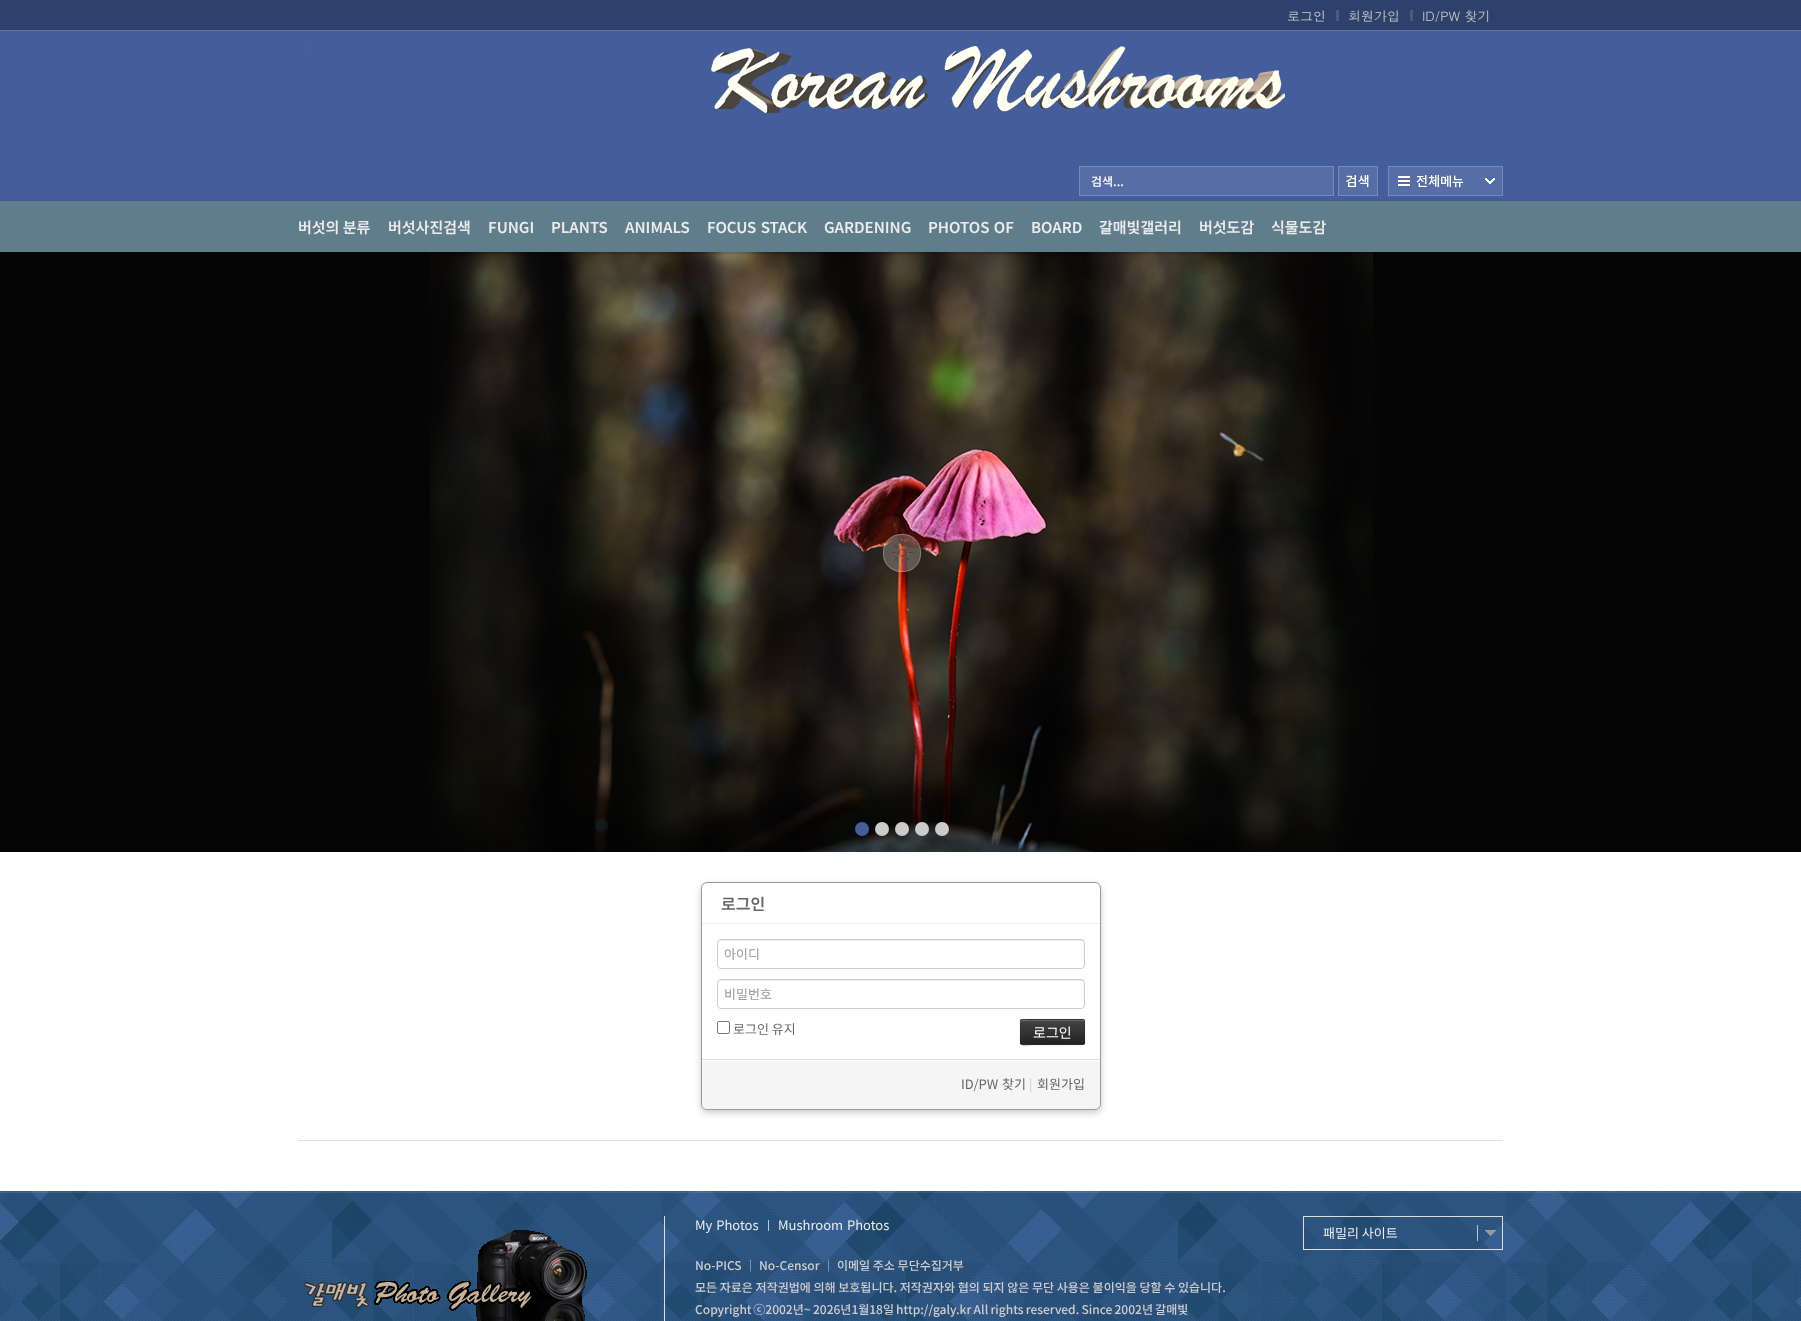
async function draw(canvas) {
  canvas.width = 1801
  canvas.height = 1321
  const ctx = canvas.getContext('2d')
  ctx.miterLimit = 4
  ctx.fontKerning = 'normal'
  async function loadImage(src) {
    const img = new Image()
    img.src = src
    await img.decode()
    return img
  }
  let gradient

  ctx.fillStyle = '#fff'
  ctx.fillRect(0, 0, 1801, 1321)
  ctx.fillStyle = '#435e9b'
  ctx.fillRect(0, 0, 1801, 201)
  ctx.drawImage(await loadImage('image0.png'), 0, 0, 1801, 31)
  ctx.font = '13px Dotum'
  ctx.fillStyle = '#cecece'
  ctx.fillText('로그인', 1287, 21)
  ctx.fillStyle = '#4f5b74'
  ctx.fillRect(1336, 10, 3, 11)
  ctx.fillStyle = '#cecece'
  ctx.fillText('회원가입', 1348, 21)
  ctx.fillStyle = '#4f5b74'
  ctx.fillRect(1410, 10, 3, 11)
  ctx.fillStyle = '#cecece'
  ctx.fillText('ID/PW 찾기', 1422, 21)
  ctx.drawImage(await loadImage('image1.png'), 307, 44, 978, 69)
  ctx.drawImage(await loadImage('image2.png'), 1079, 166, 299, 30)
  ctx.font = '500 12px Noto Sans KR'
  ctx.fillStyle = '#fff'
  ctx.fillText('검색...', 1091, 186)
  ctx.drawImage(await loadImage('image3.png'), 1388, 166, 115, 30)
  ctx.drawImage(await loadImage('image4.png'), 0, 252, 1801, 600)
  ctx.fillStyle = '#0000004d'
  ctx.filter = 'blur(1.5px)'
  ctx.beginPath()
  ctx.rect(0, 202, 1801, 51)
  ctx.fill()
  ctx.filter = 'none'
  ctx.fillStyle = '#607d8b'
  ctx.fillRect(0, 201, 1801, 51)
  ctx.font = '600 15px Noto Sans KR'
  ctx.fillStyle = '#ececec'
  ctx.fillText('버섯의 분류', 298, 233)
  ctx.fillText('버섯사진검색', 388, 233)
  ctx.fillText('FUNGI', 488, 233)
  ctx.fillText('PLANTS', 551, 233)
  ctx.fillText('ANIMALS', 625, 233)
  ctx.wordSpacing = '1px'
  ctx.fillText('FOCUS STACK', 707, 233)
  ctx.wordSpacing = '0px'
  ctx.fillText('GARDENING', 824, 233)
  ctx.wordSpacing = '1px'
  ctx.fillText('PHOTOS OF', 928, 233)
  ctx.wordSpacing = '0px'
  ctx.fillText('BOARD', 1031, 233)
  ctx.fillText('갈매빛갤러리', 1099, 233)
  ctx.fillText('버섯도감', 1199, 233)
  ctx.fillText('식물도감', 1271, 233)
  ctx.fillStyle = '#ffffff3d'
  ctx.beginPath()
  ctx.roundRect(883, 534, 38, 38, 18)
  ctx.fill()
  ctx.drawImage(await loadImage('image5.png'), 891, 542, 23, 22)
  ctx.beginPath()
  ctx.roundRect(883.5, 534.5, 37, 37, 17.5)
  ctx.strokeStyle = '#ffffff42'
  ctx.stroke()
  ctx.fillStyle = '#435e9b'
  ctx.beginPath()
  ctx.arc(862, 829, 7, 0, 2 * Math.PI)
  ctx.fill()
  ctx.fillStyle = '#ccc'
  ctx.beginPath()
  ctx.arc(882, 829, 7, 0, 2 * Math.PI)
  ctx.fill()
  ctx.beginPath()
  ctx.arc(902, 829, 7, 0, 2 * Math.PI)
  ctx.fill()
  ctx.beginPath()
  ctx.arc(922, 829, 7, 0, 2 * Math.PI)
  ctx.fill()
  ctx.beginPath()
  ctx.arc(942, 829, 7, 0, 2 * Math.PI)
  ctx.fill()
  ctx.filter = 'blur(3.5px)'
  ctx.beginPath()
  ctx.roundRect(701, 885, 400, 228, 6)
  ctx.fill()
  ctx.filter = 'none'
  ctx.fillStyle = '#fff'
  ctx.beginPath()
  ctx.roundRect(701.5, 882.5, 399, 227, 5.5)
  ctx.fill()
  ctx.strokeStyle = '#999'
  ctx.stroke()
  ctx.fillStyle = '#eee'
  ctx.fillRect(702, 923, 398, 1)
  ctx.font = '600 16px Noto Sans KR'
  ctx.fillStyle = '#666'
  ctx.fillText('로그인', 721, 910)
  ctx.fillStyle = '#ececec'
  ctx.beginPath()
  ctx.moveTo(721, 941)
  ctx.lineTo(1081, 941)
  ctx.bezierCurveTo(1083, 941, 1084, 942, 1084, 944)
  ctx.bezierCurveTo(1084, 942, 1083, 940, 1081, 940)
  ctx.lineTo(721, 940)
  ctx.lineTo(719, 941)
  ctx.lineTo(718, 944)
  ctx.bezierCurveTo(718, 942, 719, 941, 721, 941)
  ctx.closePath()
  ctx.fill()
  ctx.beginPath()
  ctx.roundRect(717.5, 939.5, 367, 29, 3.5)
  ctx.strokeStyle = '#ccc'
  ctx.stroke()
  ctx.font = '13px Noto Sans KR'
  ctx.fillStyle = '#999'
  ctx.fillText('아이디', 724, 959)
  ctx.fillStyle = '#ececec'
  ctx.beginPath()
  ctx.moveTo(721, 981)
  ctx.lineTo(1081, 981)
  ctx.bezierCurveTo(1083, 981, 1084, 982, 1084, 984)
  ctx.bezierCurveTo(1084, 982, 1083, 980, 1081, 980)
  ctx.lineTo(721, 980)
  ctx.lineTo(719, 981)
  ctx.lineTo(718, 984)
  ctx.bezierCurveTo(718, 982, 719, 981, 721, 981)
  ctx.closePath()
  ctx.fill()
  ctx.beginPath()
  ctx.roundRect(717.5, 979.5, 367, 29, 3.5)
  ctx.stroke()
  ctx.fillStyle = '#999'
  ctx.fillText('비밀번호', 724, 999)
  ctx.beginPath()
  ctx.roundRect(717.5, 1021.5, 12, 12, 1.5)
  ctx.strokeStyle = '#767676'
  ctx.stroke()
  ctx.fillStyle = '#666'
  ctx.fillText('로그인 유지', 733, 1034)
  ctx.fillStyle = '#0000000d'
  ctx.filter = 'blur(1px)'
  ctx.beginPath()
  ctx.roundRect(1020, 1020, 65, 26, 2)
  ctx.fill()
  ctx.filter = 'none'
  ctx.fillStyle = '#363636'
  ctx.beginPath()
  ctx.roundRect(1020, 1019, 65, 26, 2)
  ctx.fill()
  ctx.save()
  ctx.beginPath()
  ctx.roundRect(1020, 1019, 65, 26, 2)
  ctx.clip()
  gradient = ctx.createLinearGradient(1053, 1020, 1053, 1044)
  gradient.addColorStop(0, '#444')
  gradient.addColorStop(1, '#222')
  ctx.fillStyle = gradient
  ctx.fillRect(1020, 1020, 65, 24)
  ctx.restore()
  ctx.fillStyle = '#ffffff33'
  ctx.beginPath()
  ctx.moveTo(1022, 1021)
  ctx.lineTo(1083, 1021)
  ctx.lineTo(1084, 1022)
  ctx.lineTo(1084, 1020)
  ctx.lineTo(1032, 1020)
  ctx.bezierCurveTo(1024, 1020, 1021, 1017, 1021, 1023)
  ctx.closePath()
  ctx.fill()
  ctx.beginPath()
  ctx.moveTo(1084, 1044)
  ctx.lineTo(1032, 1044.5)
  ctx.bezierCurveTo(1028.5, 1044.5, 1023.5, 1046.5, 1021, 1044)
  ctx.strokeStyle = '#00000040'
  ctx.stroke()
  ctx.beginPath()
  ctx.moveTo(1021, 1044)
  ctx.bezierCurveTo(1019.5, 1042.5, 1020.5, 1034, 1020.5, 1032)
  ctx.bezierCurveTo(1020.5, 1017, 1017.5, 1019.5, 1032, 1019.5)
  ctx.lineTo(1073, 1019.5)
  ctx.bezierCurveTo(1087.5, 1019.5, 1084.5, 1017, 1084.5, 1032)
  ctx.bezierCurveTo(1084.5, 1034, 1085.5, 1042.5, 1084, 1044)
  ctx.strokeStyle = '#0000001a'
  ctx.stroke()
  ctx.font = '14px Noto Sans KR'
  ctx.fillStyle = '#fff'
  ctx.fillText('로그인', 1033, 1038)
  ctx.fillStyle = '#f5f5f5'
  ctx.beginPath()
  ctx.roundRect(702, 1059, 398, 50, [0, 0, 6, 6])
  ctx.fill()
  ctx.fillStyle = '#fff'
  ctx.fillRect(702, 1060, 398, 1)
  ctx.fillStyle = '#ddd'
  ctx.fillRect(702, 1059, 398, 1)
  ctx.wordSpacing = '1px'
  ctx.font = '13px Noto Sans KR'
  ctx.fillStyle = '#666'
  ctx.fillText('ID/PW 찾기', 961, 1089)
  ctx.wordSpacing = '0px'
  ctx.fillStyle = '#cecece'
  ctx.fillText('|', 1029, 1089)
  ctx.fillStyle = '#666'
  ctx.fillText('회원가입', 1037, 1089)
  ctx.fillStyle = '#e2e2e2'
  ctx.fillRect(298, 1140, 1205, 1)
  ctx.drawImage(await loadImage('image6.png'), 0, 1191, 1801, 130)
  ctx.fillStyle = '#dedede'
  ctx.fillRect(664, 1216, 1, 105)
  ctx.drawImage(await loadImage('image7.png'), 303, 1230, 284, 91)
  ctx.wordSpacing = '1px'
  ctx.fillStyle = '#ececec'
  ctx.fillText('My Photos', 695, 1230)
  ctx.fillStyle = '#c8c8c8'
  ctx.fillRect(768, 1220, 1, 11)
  ctx.fillStyle = '#ececec'
  ctx.fillText('Mushroom Photos', 778, 1230)
  ctx.wordSpacing = '0px'
  ctx.font = '500 12px Noto Sans KR'
  ctx.fillStyle = '#cecece'
  ctx.fillText('No-PICS │ No-Censor │ 이메일 주소 무단수집거부', 695, 1270)
  ctx.fillText('모든 자료은 저작권법에 의해 보호됩니다. 저작권자와 협의 되지 않은 무단 사용은 불이익을 당할 수 있습니다.', 695, 1292)
  ctx.wordSpacing = '-1px'
  ctx.fillText('Copyright ⓒ2002년~', 695, 1314)
  ctx.wordSpacing = '0px'
  ctx.fillText('2026년1월18일', 813, 1314)
  ctx.wordSpacing = '-0.5px'
  ctx.fillText('http://galy.kr All rights reserved. Since 2002년 갈매빛', 896, 1314)
  ctx.drawImage(await loadImage('image8.png'), 1303, 1216, 200, 34)
  ctx.wordSpacing = '0px'
  ctx.font = '13px Noto Sans KR'
  ctx.fillStyle = '#ececec'
  ctx.fillText('패밀리 사이트', 1323, 1238)
}

draw(document.querySelector('canvas'))
